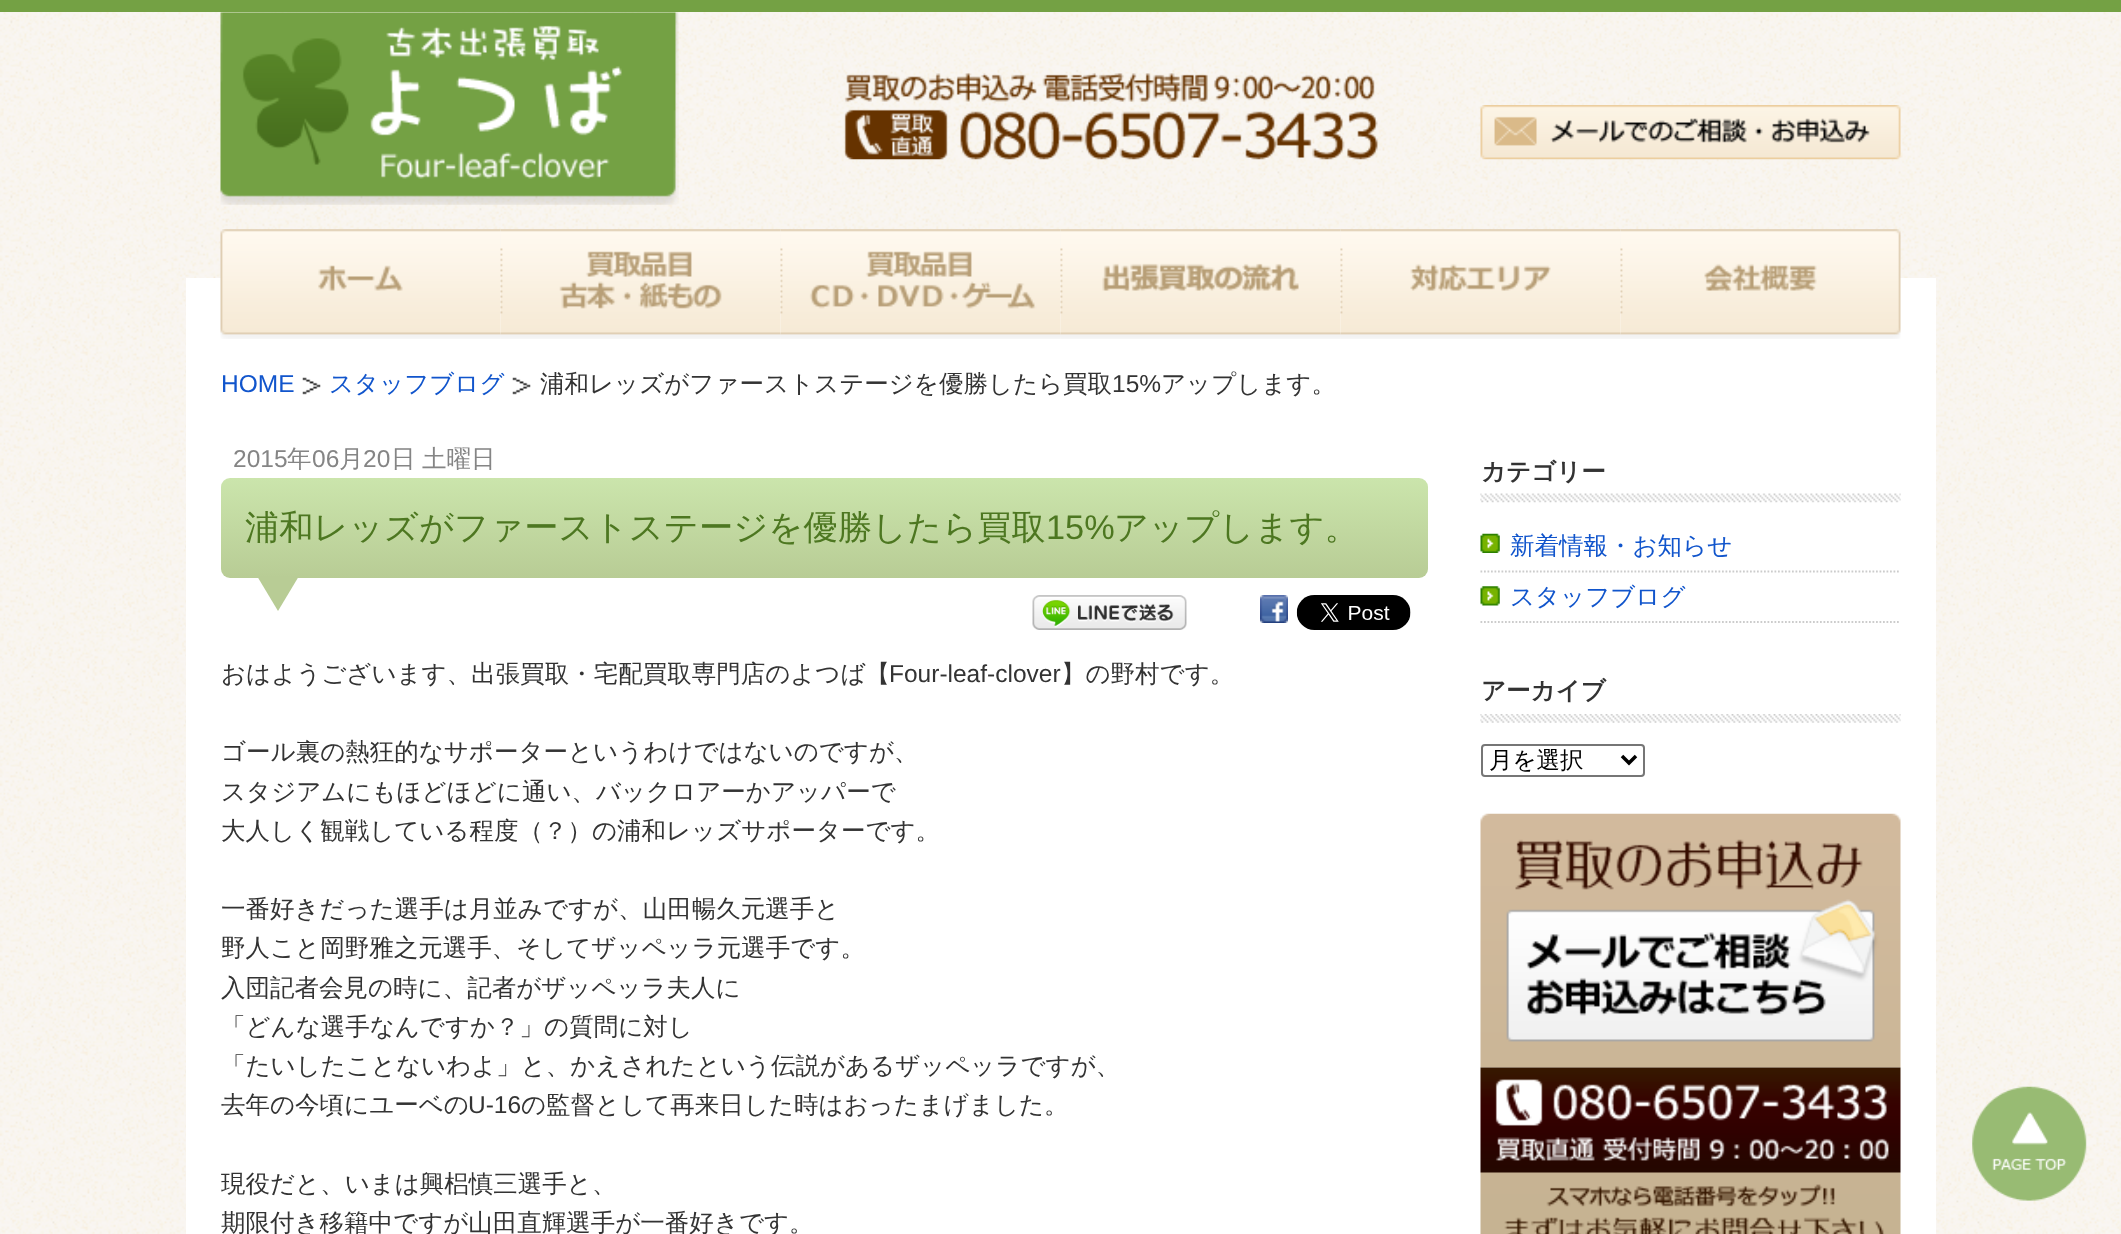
async function draw(canvas) {
  canvas.width = 2121
  canvas.height = 1234
  const ctx = canvas.getContext('2d')
  ctx.miterLimit = 4
  ctx.fontKerning = 'normal'
  async function loadImage(src) {
    const img = new Image()
    img.src = src
    await img.decode()
    return img
  }
  let gradient

  ctx.fillStyle = '#fff'
  ctx.fillRect(0, 0, 2121, 1234)
  ctx.drawImage(await loadImage('image0.png'), 0, 12, 2121, 1222)
  ctx.fillStyle = '#74a144'
  ctx.fillRect(0, 0, 2121, 12)
  ctx.drawImage(await loadImage('image1.png'), 220, 12, 459, 193)
  ctx.drawImage(await loadImage('image2.png'), 844, 73, 534, 87)
  ctx.drawImage(await loadImage('image3.png'), 1480, 105, 421, 55)
  ctx.fillStyle = '#fff'
  ctx.fillRect(186, 278, 1750, 956)
  ctx.drawImage(await loadImage('image4.png'), 220, 229, 281, 110)
  ctx.drawImage(await loadImage('image5.png'), 500, 229, 281, 110)
  ctx.drawImage(await loadImage('image6.png'), 780, 229, 281, 110)
  ctx.drawImage(await loadImage('image7.png'), 1060, 229, 281, 110)
  ctx.drawImage(await loadImage('image8.png'), 1340, 229, 281, 110)
  ctx.drawImage(await loadImage('image9.png'), 1620, 229, 281, 110)
  ctx.font = '24.5px Liberation Sans'
  ctx.fillStyle = '#15c'
  ctx.fillText('HOME', 221, 392)
  ctx.drawImage(await loadImage('image10.png'), 302, 377, 19, 18)
  ctx.font = '500 24.5px WenQuanYi Zen Hei'
  ctx.fillText('スタッフブログ', 329, 392)
  ctx.drawImage(await loadImage('image10.png'), 512, 377, 19, 18)
  ctx.fillStyle = '#333'
  ctx.fillText('浦和レッズがファーストステージを優勝したら買取', 540, 392)
  ctx.font = '24.5px Liberation Sans'
  ctx.fillText('15%', 1112, 392)
  ctx.font = '500 24.5px WenQuanYi Zen Hei'
  ctx.fillText('アップします。', 1161, 392)
  ctx.font = '24.5px Liberation Sans'
  ctx.fillStyle = '#858585'
  ctx.fillText('2015', 233, 467)
  ctx.font = '500 24.5px WenQuanYi Zen Hei'
  ctx.fillText('年', 287, 467)
  ctx.font = '24.5px Liberation Sans'
  ctx.fillText('06', 312, 467)
  ctx.font = '500 24.5px WenQuanYi Zen Hei'
  ctx.fillText('月', 339, 467)
  ctx.font = '24.5px Liberation Sans'
  ctx.fillText('20', 363, 467)
  ctx.font = '500 24.5px WenQuanYi Zen Hei'
  ctx.fillText('日', 391, 467)
  ctx.fillText('土曜日', 422, 467)
  gradient = ctx.createLinearGradient(824, 478, 824, 578)
  gradient.addColorStop(0, '#cbe5ac')
  gradient.addColorStop(1, '#b8cc95')
  ctx.fillStyle = gradient
  ctx.beginPath()
  ctx.roundRect(221, 478, 1207, 100, 9)
  ctx.fill()
  ctx.font = '500 34.3px WenQuanYi Zen Hei'
  ctx.fillStyle = '#4d7721'
  ctx.fillText('浦和レッズがファーストステージを優勝したら買取', 245, 539)
  ctx.font = '34.3px Liberation Sans'
  ctx.fillText('15%', 1046, 539)
  ctx.font = '500 34.3px WenQuanYi Zen Hei'
  ctx.fillText('アップします。', 1114, 539)
  ctx.fillStyle = '#b8cc95'
  ctx.beginPath()
  ctx.moveTo(257, 576)
  ctx.lineTo(299, 576)
  ctx.lineTo(278, 611)
  ctx.closePath()
  ctx.fill()
  ctx.drawImage(await loadImage('image11.png'), 1032, 595, 155, 35)
  ctx.drawImage(await loadImage('image12.png'), 1260, 595, 28, 28)
  ctx.drawImage(await loadImage('image13.png'), 1296, 595, 115, 35)
  ctx.font = '500 24.5px WenQuanYi Zen Hei'
  ctx.fillStyle = '#333'
  ctx.fillText('おはようございます、出張買取・宅配買取専門店のよつば【', 221, 682)
  ctx.font = '24.5px Liberation Sans'
  ctx.fillText('Four-leaf-clover', 889, 682)
  ctx.font = '500 24.5px WenQuanYi Zen Hei'
  ctx.fillText('】の野村です。', 1061, 682)
  ctx.fillText('ゴール裏の熱狂的なサポーターというわけではないのですが、', 221, 760)
  ctx.fillText('スタジアムにもほどほどに通い、バックロアーかアッパーで', 221, 800)
  ctx.fillText('大人しく観戦している程度（？）の浦和レッズサポーターです。', 221, 839)
  ctx.fillText('一番好きだった選手は月並みですが、山田暢久元選手と', 221, 917)
  ctx.fillText('野人こと岡野雅之元選手、そしてザッペッラ元選手です。', 221, 956)
  ctx.fillText('入団記者会見の時に、記者がザッペッラ夫人に', 221, 996)
  ctx.fillText('「どんな選手なんですか？」の質問に対し', 221, 1035)
  ctx.fillText('「たいしたことないわよ」と、かえされたという伝説があるザッペッラですが、', 221, 1074)
  ctx.fillText('去年の今頃にユーベの', 221, 1113)
  ctx.font = '24.5px Liberation Sans'
  ctx.fillText('U-16', 468, 1113)
  ctx.font = '500 24.5px WenQuanYi Zen Hei'
  ctx.fillText('の監督として再来日した時はおったまげました。', 521, 1113)
  ctx.fillText('現役だと、いまは興梠慎三選手と、', 221, 1192)
  ctx.fillText('期限付き移籍中ですが山田直輝選手が一番好きです。', 221, 1231)
  ctx.drawImage(await loadImage('image14.png'), 1480, 493, 421, 10)
  ctx.font = 'bold 24.5px WenQuanYi Zen Hei'
  ctx.fillText('カテゴリー', 1481, 480)
  ctx.drawImage(await loadImage('image15.png'), 1480, 533, 20, 20)
  ctx.beginPath()
  ctx.moveTo(1480.5, 571.5)
  ctx.lineTo(1900.5, 571.5)
  ctx.strokeStyle = '#ccc'
  ctx.lineWidth = 1.8
  ctx.setLineDash([1.75, 1.75])
  ctx.stroke()
  ctx.font = '500 24.5px WenQuanYi Zen Hei'
  ctx.fillStyle = '#15c'
  ctx.fillText('新着情報・お知らせ', 1510, 554)
  ctx.drawImage(await loadImage('image16.png'), 1480, 586, 20, 20)
  ctx.beginPath()
  ctx.moveTo(1480.5, 622)
  ctx.lineTo(1900.5, 622)
  ctx.stroke()
  ctx.fillText('スタッフブログ', 1510, 605)
  ctx.drawImage(await loadImage('image17.png'), 1480, 714, 421, 9)
  ctx.font = 'bold 24.5px WenQuanYi Zen Hei'
  ctx.fillStyle = '#333'
  ctx.fillText('アーカイブ', 1481, 699)
  ctx.beginPath()
  ctx.roundRect(1482, 745, 162, 31, 3)
  ctx.strokeStyle = '#767676'
  ctx.lineWidth = 2
  ctx.setLineDash([])
  ctx.stroke()
  ctx.beginPath()
  ctx.moveTo(1622, 756)
  ctx.lineTo(1629, 763)
  ctx.lineTo(1636, 756)
  ctx.strokeStyle = '#000'
  ctx.lineWidth = 3.5
  ctx.stroke()
  ctx.font = '500 23.5px WenQuanYi Zen Hei'
  ctx.fillStyle = '#000'
  ctx.fillText('月を選択', 1489, 768)
  ctx.drawImage(await loadImage('image18.png'), 1480, 813, 421, 255)
  ctx.drawImage(await loadImage('image19.png'), 1480, 1067, 421, 167)
  ctx.drawImage(await loadImage('image20.png'), 1972, 1086, 115, 115)
}

draw(document.querySelector('canvas'))
